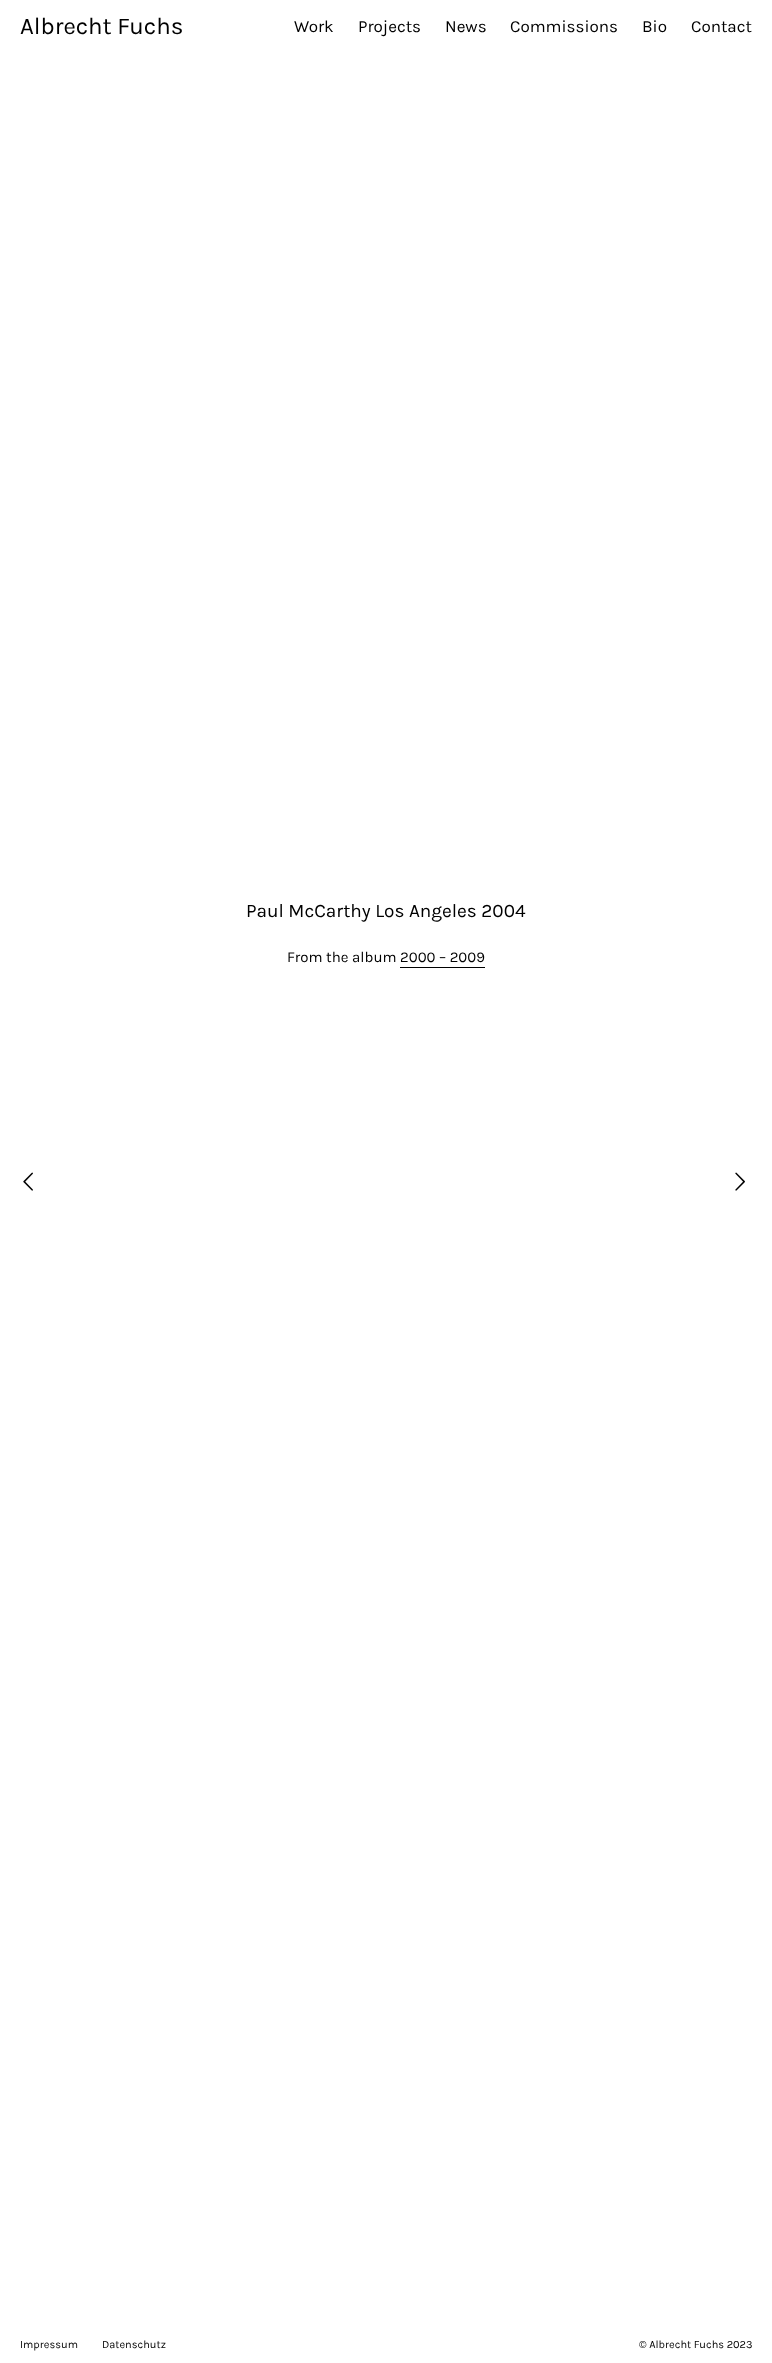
async function draw(canvas) {
  canvas.width = 772
  canvas.height = 2363
  const ctx = canvas.getContext('2d')
  ctx.miterLimit = 4
  ctx.fontKerning = 'normal'
  async function loadImage(src) {
    const img = new Image()
    img.src = src
    await img.decode()
    return img
  }

  ctx.fillStyle = '#fff'
  ctx.fillRect(0, 0, 772, 2363)
  ctx.font = '24px Karla'
  ctx.fillStyle = '#000'
  ctx.fillText('Albrecht Fuchs', 20, 34)
  ctx.font = '17px Karla'
  ctx.fillText('Work', 294, 32)
  ctx.fillText('Projects', 358, 32)
  ctx.fillText('News', 445, 32)
  ctx.fillText('Commissions', 510, 32)
  ctx.fillText('Bio', 642, 32)
  ctx.fillText('Contact', 691, 32)
  ctx.font = '19px Karla'
  ctx.fillText('Paul McCarthy Los Angeles 2004', 246, 917)
  ctx.font = '15px Karla'
  ctx.fillText('From the album 2000 – 2009', 287, 962)
  ctx.fillRect(400, 967, 85, 1)
  ctx.drawImage(await loadImage('image0.png'), 23, 1172, 10, 19)
  ctx.drawImage(await loadImage('image1.png'), 735, 1172, 10, 19)
  ctx.font = '11px Karla'
  ctx.fillText('Impressum', 20, 2348)
  ctx.fillText('Datenschutz', 102, 2348)
  ctx.fillText('© Albrecht Fuchs 2023', 639, 2348)
}

draw(document.querySelector('canvas'))
